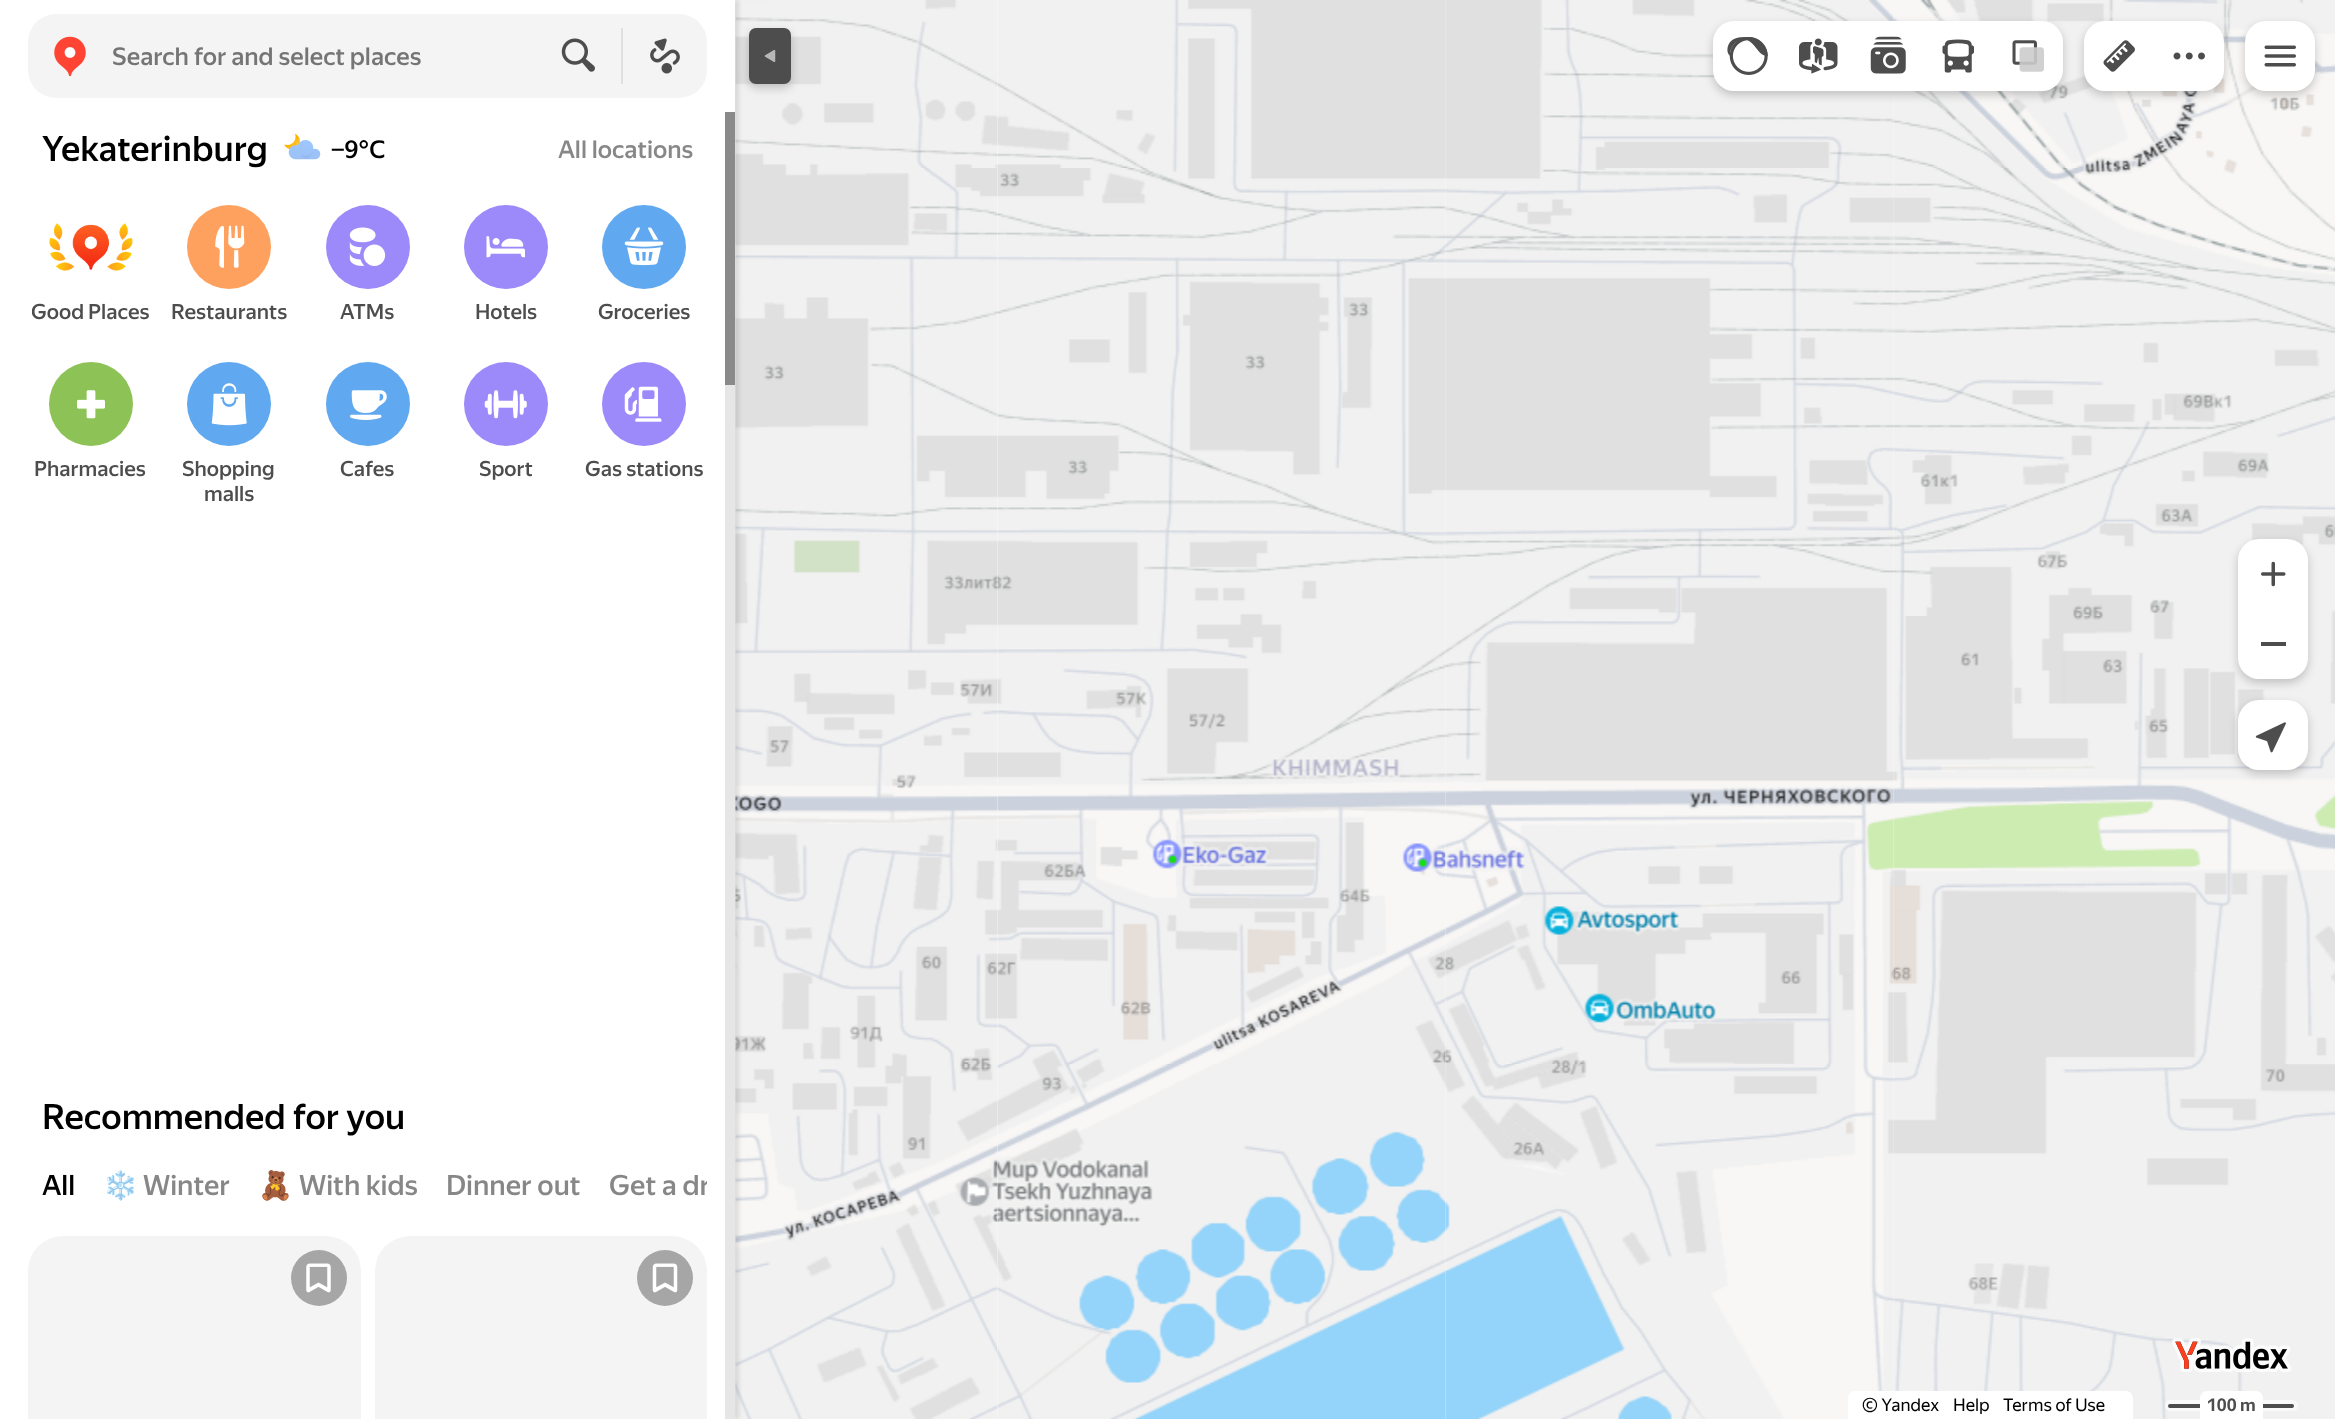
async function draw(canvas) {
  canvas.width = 2335
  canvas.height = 1419
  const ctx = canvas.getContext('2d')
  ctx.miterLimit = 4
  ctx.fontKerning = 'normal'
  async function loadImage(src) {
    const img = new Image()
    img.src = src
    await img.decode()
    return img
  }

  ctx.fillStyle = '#fff'
  ctx.fillRect(0, 0, 2335, 1419)
  ctx.drawImage(await loadImage('image0.png'), 735, 0, 1159, 1419)
  ctx.drawImage(await loadImage('image2.png'), 997, 0, 449, 168)
  ctx.drawImage(await loadImage('image1.png'), 735, 0, 263, 168)
  ctx.drawImage(await loadImage('image3.png'), 1445, 0, 449, 168)
  ctx.drawImage(await loadImage('image4.png'), 1893, 0, 442, 168)
  ctx.drawImage(await loadImage('image6.png'), 997, 168, 449, 448)
  ctx.drawImage(await loadImage('image5.png'), 735, 168, 263, 448)
  ctx.drawImage(await loadImage('image7.png'), 1445, 168, 449, 448)
  ctx.drawImage(await loadImage('image8.png'), 1893, 168, 442, 448)
  ctx.drawImage(await loadImage('image10.png'), 997, 616, 449, 448)
  ctx.drawImage(await loadImage('image9.png'), 735, 616, 263, 448)
  ctx.drawImage(await loadImage('image11.png'), 1445, 616, 449, 448)
  ctx.drawImage(await loadImage('image12.png'), 1893, 616, 442, 448)
  ctx.drawImage(await loadImage('image14.png'), 997, 1064, 449, 355)
  ctx.drawImage(await loadImage('image13.png'), 735, 1064, 263, 355)
  ctx.drawImage(await loadImage('image15.png'), 1445, 1064, 449, 355)
  ctx.drawImage(await loadImage('image16.png'), 1893, 1064, 442, 355)
  ctx.fillStyle = '#0000001a'
  ctx.filter = 'blur(2px)'
  ctx.beginPath()
  ctx.rect(4, 0, 735, 1419)
  ctx.fill()
  ctx.filter = 'none'
  ctx.fillStyle = '#00000033'
  ctx.filter = 'blur(5px)'
  ctx.beginPath()
  ctx.roundRect(749, 32, 42, 56, 7)
  ctx.fill()
  ctx.filter = 'none'
  ctx.fillStyle = '#fff'
  ctx.fillRect(1, 0, 734, 1419)
  ctx.fillStyle = '#f4f4f4'
  ctx.beginPath()
  ctx.roundRect(28, 14, 679, 84, 28)
  ctx.fill()
  ctx.drawImage(await loadImage('image17.png'), 54, 36, 32, 41)
  ctx.font = '500 24.5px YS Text'
  ctx.fillStyle = '#757575'
  ctx.fillText('Search for and select places', 112, 65)
  ctx.drawImage(await loadImage('image18.png'), 561, 38, 34, 34)
  ctx.fillStyle = '#e0e0e0'
  ctx.fillRect(621, 28, 2, 56)
  ctx.drawImage(await loadImage('image19.png'), 650, 38, 30, 36)
  ctx.fillStyle = '#00000033'
  ctx.filter = 'blur(5px)'
  ctx.beginPath()
  ctx.roundRect(1713, 25, 350, 70, 21)
  ctx.fill()
  ctx.filter = 'none'
  ctx.fillStyle = '#fff'
  ctx.beginPath()
  ctx.roundRect(1713, 21, 70, 70, [21, 0, 0, 21])
  ctx.fill()
  ctx.drawImage(await loadImage('image20.png'), 1727, 37, 41, 38)
  ctx.fillRect(1783, 21, 210, 70)
  ctx.drawImage(await loadImage('image21.png'), 1799, 38, 39, 36)
  ctx.beginPath()
  ctx.roundRect(1993, 21, 70, 70, [0, 21, 21, 0])
  ctx.fill()
  ctx.drawImage(await loadImage('image22.png'), 2012, 40, 32, 32)
  ctx.drawImage(await loadImage('image23.png'), 1870, 36, 36, 38)
  ctx.drawImage(await loadImage('image24.png'), 1942, 39, 32, 34)
  ctx.fillStyle = '#00000033'
  ctx.filter = 'blur(5px)'
  ctx.beginPath()
  ctx.roundRect(2084, 25, 140, 70, 21)
  ctx.fill()
  ctx.filter = 'none'
  ctx.fillStyle = '#fff'
  ctx.beginPath()
  ctx.roundRect(2084, 21, 70, 70, [21, 0, 0, 21])
  ctx.fill()
  ctx.drawImage(await loadImage('image25.png'), 2103, 40, 32, 32)
  ctx.beginPath()
  ctx.roundRect(2154, 21, 70, 70, [0, 21, 21, 0])
  ctx.fill()
  ctx.drawImage(await loadImage('image26.png'), 2173, 52, 32, 8)
  ctx.fillStyle = '#00000033'
  ctx.filter = 'blur(5px)'
  ctx.beginPath()
  ctx.roundRect(2245, 25, 70, 70, 21)
  ctx.fill()
  ctx.filter = 'none'
  ctx.fillStyle = '#fff'
  ctx.beginPath()
  ctx.roundRect(2245, 21, 70, 70, 21)
  ctx.fill()
  ctx.drawImage(await loadImage('image27.png'), 2264, 45, 32, 22)
  ctx.fillStyle = '#00000033'
  ctx.filter = 'blur(5px)'
  ctx.beginPath()
  ctx.roundRect(2238, 543, 70, 140, 21)
  ctx.fill()
  ctx.filter = 'none'
  ctx.fillStyle = '#fff'
  ctx.beginPath()
  ctx.roundRect(2238, 539, 70, 70, [21, 21, 0, 0])
  ctx.fill()
  ctx.drawImage(await loadImage('image28.png'), 2261, 561, 25, 26)
  ctx.beginPath()
  ctx.roundRect(2238, 609, 70, 70, [0, 0, 21, 21])
  ctx.fill()
  ctx.fillStyle = '#4d4d4d'
  ctx.fillRect(2261, 642, 25, 4)
  ctx.fillStyle = '#00000033'
  ctx.filter = 'blur(5px)'
  ctx.beginPath()
  ctx.roundRect(2238, 704, 70, 70, 21)
  ctx.fill()
  ctx.filter = 'none'
  ctx.fillStyle = '#fff'
  ctx.beginPath()
  ctx.roundRect(2238, 700, 70, 70, 21)
  ctx.fill()
  ctx.drawImage(await loadImage('image29.png'), 2255, 722, 31, 31)
  ctx.fillStyle = '#4d4d4d'
  ctx.beginPath()
  ctx.roundRect(749, 28, 42, 56, 7)
  ctx.fill()
  ctx.drawImage(await loadImage('image30.png'), 764, 49, 12, 14)
  ctx.font = '500 35px YS Text'
  ctx.fillStyle = '#000'
  ctx.fillText('Yekaterinburg', 42, 161)
  ctx.drawImage(await loadImage('image31.png'), 284, 133, 37, 27)
  ctx.font = '500 24.5px YS Text'
  ctx.fillText('−9°C', 331, 158)
  ctx.fillStyle = '#878787'
  ctx.fillText('All locations', 558, 158)
  ctx.drawImage(await loadImage('image32.png'), 49, 223, 84, 48)
  ctx.save()
  ctx.beginPath()
  ctx.rect(32, 299, 119, 25)
  ctx.clip()
  ctx.font = '500 21px YS Text'
  ctx.fillStyle = '#4d4d4d'
  ctx.fillText('Good', 31, 319)
  ctx.restore()
  ctx.font = '500 21px YS Text'
  ctx.fillStyle = '#4d4d4d'
  ctx.fillText('Places', 88, 319)
  ctx.fillStyle = '#ffa15e'
  ctx.beginPath()
  ctx.arc(229, 247, 42, 0, 2 * Math.PI)
  ctx.fill()
  ctx.drawImage(await loadImage('image33.png'), 215, 225, 30, 43)
  ctx.fillStyle = '#4d4d4d'
  ctx.fillText('Restaurants', 171, 319)
  ctx.fillStyle = '#9c89fa'
  ctx.beginPath()
  ctx.arc(368, 247, 42, 0, 2 * Math.PI)
  ctx.fill()
  ctx.drawImage(await loadImage('image34.png'), 349, 227, 37, 39)
  ctx.fillStyle = '#4d4d4d'
  ctx.fillText('ATMs', 340, 319)
  ctx.fillStyle = '#9c89fa'
  ctx.beginPath()
  ctx.arc(506, 247, 42, 0, 2 * Math.PI)
  ctx.fill()
  ctx.drawImage(await loadImage('image35.png'), 486, 236, 39, 22)
  ctx.fillStyle = '#4d4d4d'
  ctx.fillText('Hotels', 475, 319)
  ctx.fillStyle = '#60a8f0'
  ctx.beginPath()
  ctx.arc(644, 247, 42, 0, 2 * Math.PI)
  ctx.fill()
  ctx.drawImage(await loadImage('image36.png'), 624, 227, 40, 39)
  ctx.fillStyle = '#4d4d4d'
  ctx.fillText('Groceries', 598, 319)
  ctx.fillStyle = '#8dc257'
  ctx.beginPath()
  ctx.arc(91, 404, 42, 0, 2 * Math.PI)
  ctx.fill()
  ctx.drawImage(await loadImage('image37.png'), 77, 390, 28, 29)
  ctx.fillStyle = '#4d4d4d'
  ctx.fillText('Pharmacies', 34, 476)
  ctx.fillStyle = '#60a8f0'
  ctx.beginPath()
  ctx.arc(229, 404, 42, 0, 2 * Math.PI)
  ctx.fill()
  ctx.drawImage(await loadImage('image38.png'), 211, 383, 36, 43)
  ctx.fillStyle = '#4d4d4d'
  ctx.fillText('Shopping', 182, 476)
  ctx.fillText('malls', 204, 501)
  ctx.fillStyle = '#60a8f0'
  ctx.beginPath()
  ctx.arc(368, 404, 42, 0, 2 * Math.PI)
  ctx.fill()
  ctx.drawImage(await loadImage('image39.png'), 350, 390, 37, 30)
  ctx.fillStyle = '#4d4d4d'
  ctx.fillText('Cafes', 340, 476)
  ctx.fillStyle = '#9c89fa'
  ctx.beginPath()
  ctx.arc(506, 404, 42, 0, 2 * Math.PI)
  ctx.fill()
  ctx.drawImage(await loadImage('image40.png'), 484, 390, 43, 29)
  ctx.fillStyle = '#4d4d4d'
  ctx.fillText('Sport', 479, 476)
  ctx.fillStyle = '#9c89fa'
  ctx.beginPath()
  ctx.arc(644, 404, 42, 0, 2 * Math.PI)
  ctx.fill()
  ctx.drawImage(await loadImage('image41.png'), 624, 386, 38, 36)
  ctx.fillStyle = '#4d4d4d'
  ctx.fillText('Gas stations', 585, 476)
  ctx.font = '500 35px YS Text'
  ctx.fillStyle = '#000'
  ctx.fillText('Recommended for you', 42, 1129)
  ctx.font = '500 28px YS Text'
  ctx.fillText('All', 42, 1195)
  ctx.font = '28px Noto Color Emoji'
  ctx.fillStyle = '#878787'
  ctx.fillText('❄️', 103, 1195)
  ctx.font = '500 28px YS Text'
  ctx.fillText('Winter', 143, 1195)
  ctx.font = '28px Noto Color Emoji'
  ctx.fillText('🧸', 258, 1195)
  ctx.font = '500 28px YS Text'
  ctx.fillText('With kids', 299, 1195)
  ctx.fillText('Dinner out', 446, 1195)
  ctx.save()
  ctx.beginPath()
  ctx.rect(28, 1152, 679, 70)
  ctx.clip()
  ctx.fillText('Get a dr', 609, 1195)
  ctx.restore()
  ctx.fillStyle = '#f4f4f4'
  ctx.beginPath()
  ctx.roundRect(28, 1236, 333, 183, [35, 35, 0, 0])
  ctx.fill()
  ctx.fillStyle = '#a6a6a6'
  ctx.beginPath()
  ctx.arc(319, 1278, 28, 0, 2 * Math.PI)
  ctx.fill()
  ctx.drawImage(await loadImage('image42.png'), 306, 1263, 25, 30)
  ctx.fillStyle = '#f4f4f4'
  ctx.beginPath()
  ctx.roundRect(375, 1236, 332, 183, [35, 35, 0, 0])
  ctx.fill()
  ctx.fillStyle = '#a6a6a6'
  ctx.beginPath()
  ctx.arc(665, 1278, 28, 0, 2 * Math.PI)
  ctx.fill()
  ctx.drawImage(await loadImage('image43.png'), 652, 1263, 26, 30)
  ctx.fillStyle = '#8a8a8a'
  ctx.fillRect(725, 112, 10, 273)
  ctx.fillStyle = '#e6e6e6'
  ctx.fillRect(725, 385, 10, 1034)
  ctx.drawImage(await loadImage('image44.png'), 2172, 1338, 120, 35)
  ctx.fillStyle = '#fff'
  ctx.beginPath()
  ctx.roundRect(1848, 1391, 285, 28, [7, 7, 0, 0])
  ctx.fill()
  ctx.font = '17.5px YS Text'
  ctx.fillStyle = '#000'
  ctx.fillText('© Yandex', 1862, 1411)
  ctx.fillText('Help', 1953, 1411)
  ctx.fillText('Terms of Use', 2003, 1411)
  ctx.fillStyle = '#ffffff99'
  ctx.beginPath()
  ctx.roundRect(2165, 1400, 133, 11, 5.5)
  ctx.fill()
  ctx.fillStyle = '#4d4d4d'
  ctx.beginPath()
  ctx.roundRect(2168, 1404, 126, 4, 2)
  ctx.fill()
  ctx.fillStyle = '#fff'
  ctx.beginPath()
  ctx.roundRect(2200, 1391, 63, 28, [7, 7, 0, 0])
  ctx.fill()
  ctx.font = 'bold 17.5px YS Text'
  ctx.fillStyle = '#4d4d4d'
  ctx.fillText('100 m', 2207, 1411)
}

draw(document.querySelector('canvas'))
